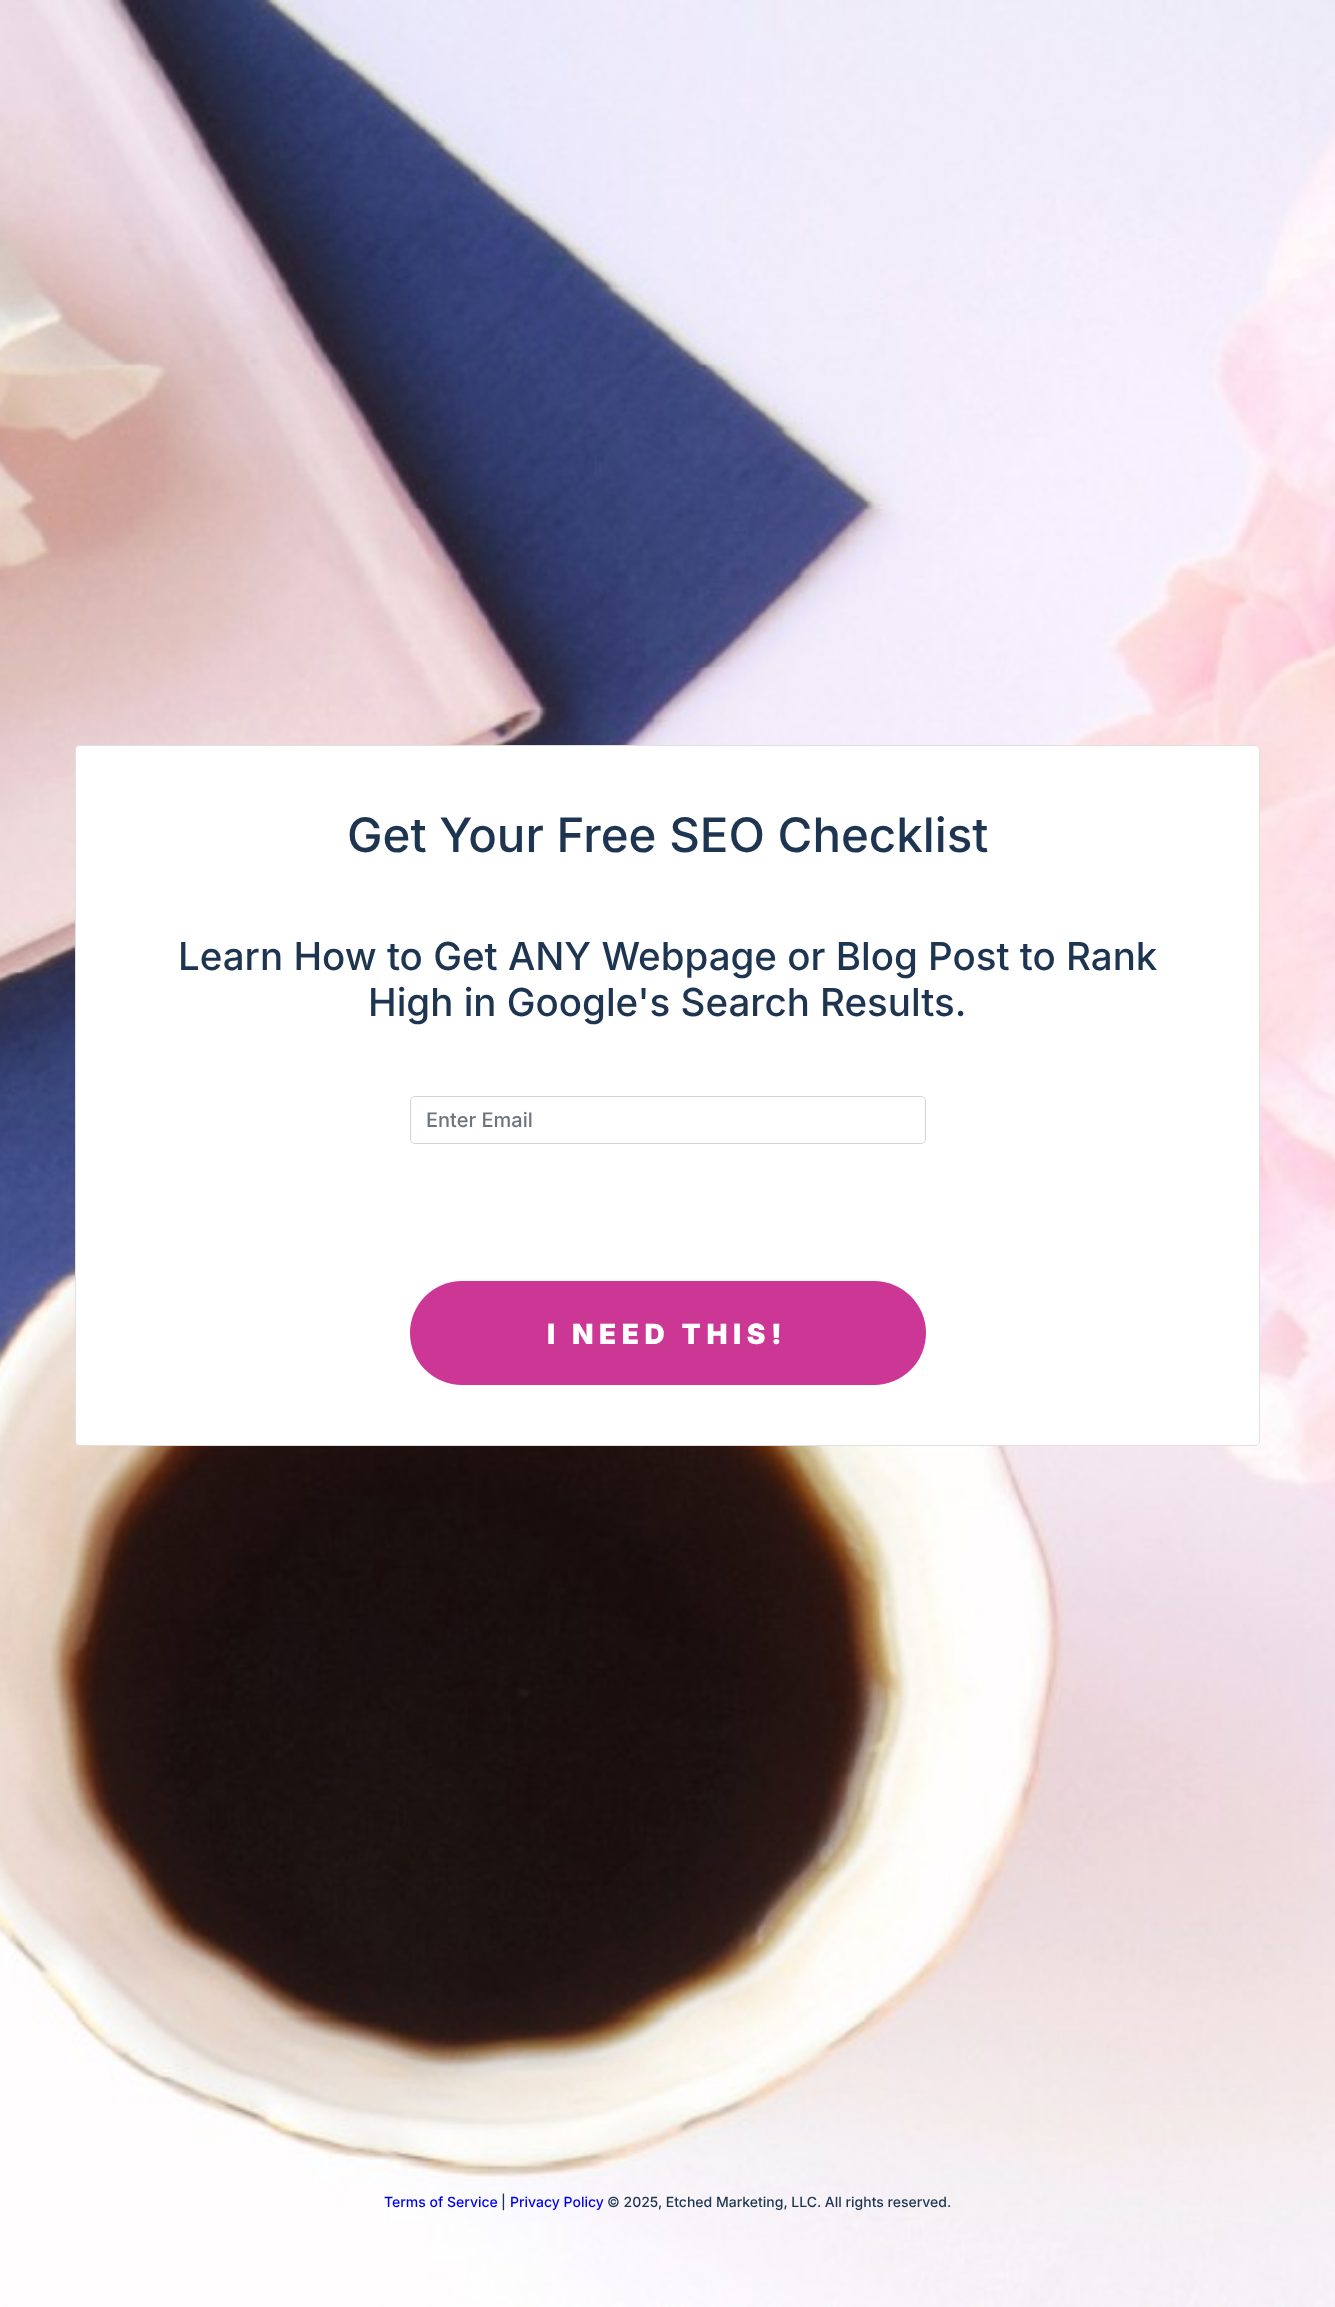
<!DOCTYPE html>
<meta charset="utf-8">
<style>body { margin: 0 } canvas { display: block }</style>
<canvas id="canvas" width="1335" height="2307"></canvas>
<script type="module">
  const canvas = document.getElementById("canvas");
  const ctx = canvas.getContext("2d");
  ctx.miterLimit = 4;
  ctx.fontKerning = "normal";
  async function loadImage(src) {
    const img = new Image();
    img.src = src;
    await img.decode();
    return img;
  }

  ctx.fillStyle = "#ffffff";
  ctx.fillRect(0, 0, 1335, 2307);
  ctx.drawImage(await loadImage("img1.png"), 0, 0, 1335, 2307);
  ctx.beginPath();
  ctx.roundRect(75, 745, 1185, 701, 5);
  ctx.fill();
  ctx.beginPath();
  ctx.roundRect(75.5, 745.5, 1184, 700, 4.5);
  ctx.strokeStyle = "rgba(0, 0, 0, 0.12)";
  ctx.stroke();
  ctx.font = "500 47.5px Inter";
  ctx.fillStyle = "#1e3551";
  ctx.fillText("Get Your Free SEO Checklist", 347, 852);
  ctx.font = "500 38.5px Inter";
  ctx.fillText("Learn How to Get ANY Webpage or Blog Post to Rank", 178, 970);
  ctx.fillText("High in Google's Search Results.", 368, 1016);
  ctx.beginPath();
  ctx.roundRect(410.5, 1096.5, 515, 47, 4.5);
  ctx.strokeStyle = "#ced4da";
  ctx.stroke();
  ctx.font = "500 20px Inter";
  ctx.fillStyle = "#6c757d";
  ctx.fillText("Enter Email", 426, 1127);
  ctx.fillStyle = "#cc3694";
  ctx.beginPath();
  ctx.roundRect(410, 1281, 516, 104, 52);
  ctx.fill();
  ctx.letterSpacing = "5.6px";
  ctx.font = "900 28px Inter";
  ctx.fillStyle = "#ffffff";
  ctx.fillText("I NEED THIS!", 547, 1344);
  ctx.letterSpacing = "0px";
  ctx.font = "500 14px Inter";
  ctx.fillStyle = "#0000ee";
  ctx.fillText("Terms of Service", 384, 2207);
  ctx.fillStyle = "#1e3551";
  ctx.fillText("|", 501, 2207);
  ctx.fillStyle = "#0000ee";
  ctx.fillText("Privacy Policy", 510, 2207);
  ctx.fillStyle = "#1e3551";
  ctx.fillText("© 2025, Etched Marketing, LLC. All rights reserved.", 607, 2207);
</script>
